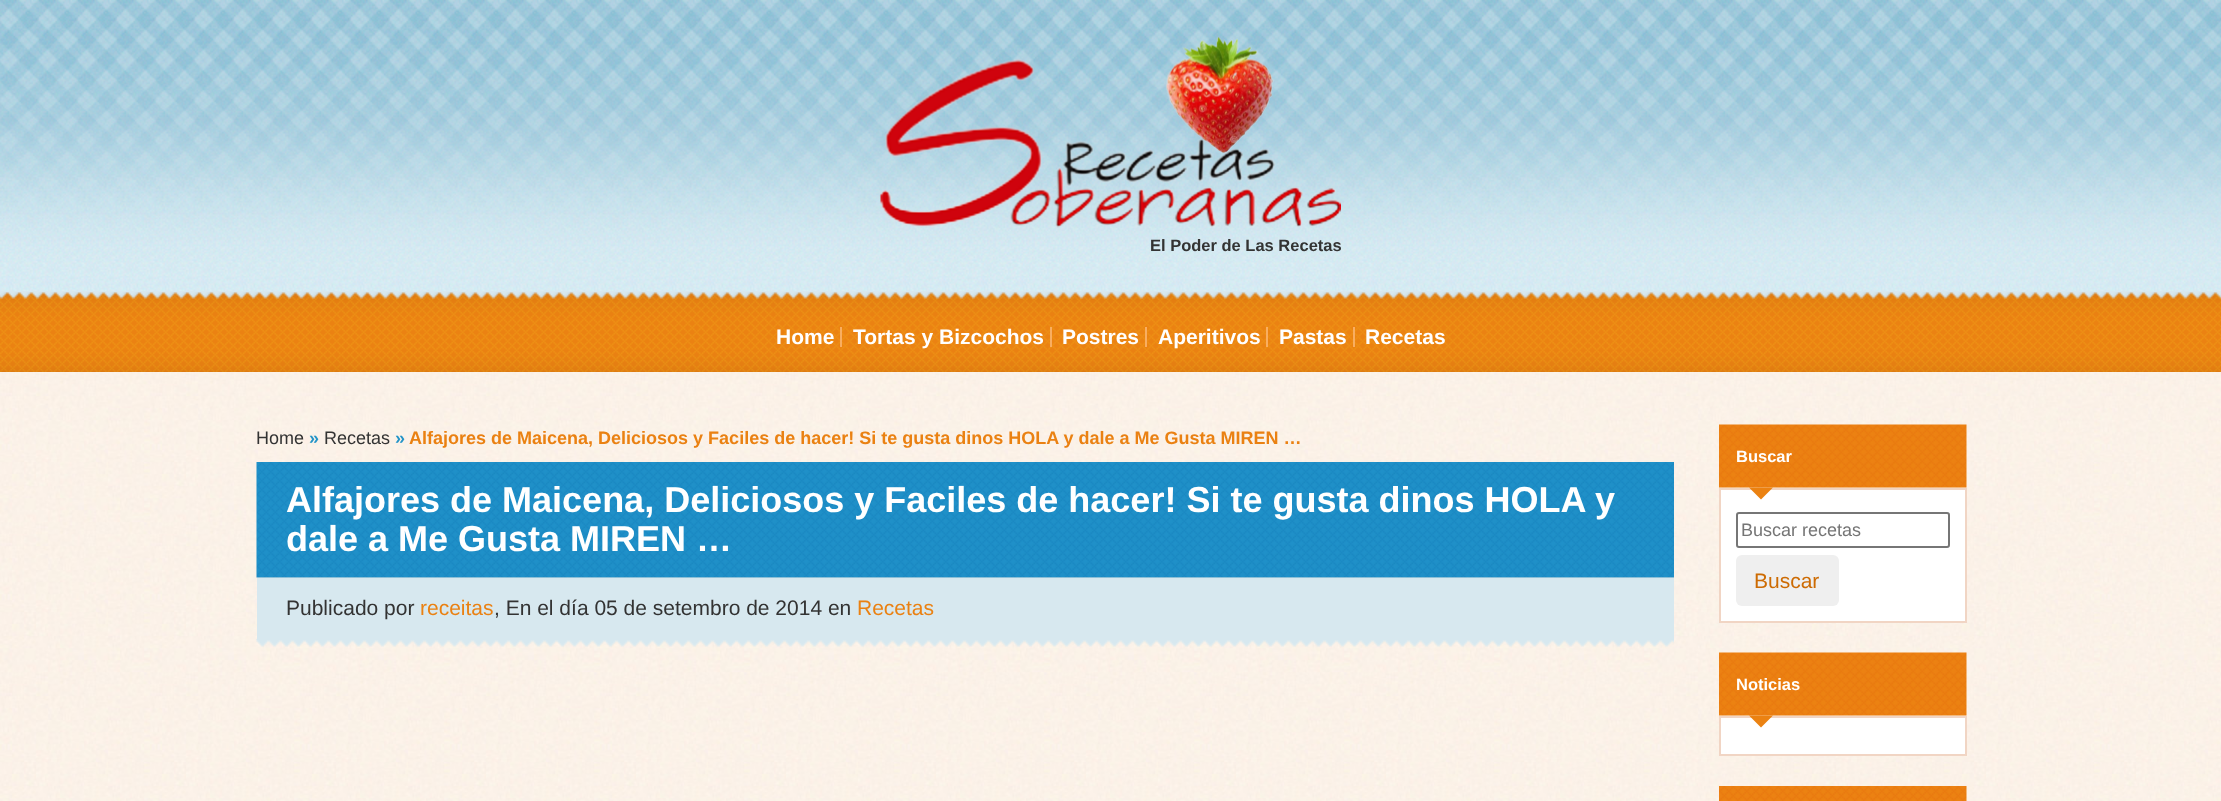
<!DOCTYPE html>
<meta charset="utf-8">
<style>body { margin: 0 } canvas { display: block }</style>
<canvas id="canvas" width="2221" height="801"></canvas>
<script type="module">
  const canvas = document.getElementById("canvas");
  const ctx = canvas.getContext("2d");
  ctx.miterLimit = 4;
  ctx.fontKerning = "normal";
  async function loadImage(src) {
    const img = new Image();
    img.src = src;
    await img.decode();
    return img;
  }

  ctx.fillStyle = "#ffffff";
  ctx.fillRect(0, 0, 2221, 801);
  ctx.drawImage(await loadImage("img1.png"), 0, 372, 2221, 429);
  ctx.drawImage(await loadImage("img2.png"), 0, 0, 2221, 291);
  ctx.drawImage(await loadImage("img3.png"), 880, 37, 461, 191);
  ctx.font = "bold 16.5px Liberation Sans";
  ctx.fillStyle = "#333333";
  ctx.fillText("El Poder de Las Recetas", 1150, 251);
  ctx.fillStyle = "#d7e8ef";
  ctx.fillRect(0, 291, 2221, 8);
  ctx.drawImage(await loadImage("img4.png"), 0, 292, 2221, 80);
  ctx.font = "bold 21px Liberation Sans";
  ctx.fillStyle = "#ffffff";
  ctx.fillText("Home", 776, 344);
  ctx.fillStyle = "#f9ae60";
  ctx.fillRect(840, 327, 2, 20);
  ctx.fillStyle = "#ffffff";
  ctx.fillText("Tortas y Bizcochos", 853, 344);
  ctx.fillStyle = "#f9ae60";
  ctx.fillRect(1050, 327, 2, 20);
  ctx.fillStyle = "#ffffff";
  ctx.fillText("Postres", 1062, 344);
  ctx.fillStyle = "#f9ae60";
  ctx.fillRect(1145, 327, 2, 20);
  ctx.fillStyle = "#ffffff";
  ctx.fillText("Aperitivos", 1158, 344);
  ctx.fillStyle = "#f9ae60";
  ctx.fillRect(1266, 327, 2, 20);
  ctx.fillStyle = "#ffffff";
  ctx.fillText("Pastas", 1279, 344);
  ctx.fillStyle = "#f9ae60";
  ctx.fillRect(1353, 327, 2, 20);
  ctx.fillStyle = "#ffffff";
  ctx.fillText("Recetas", 1365, 344);
  ctx.font = "18px Liberation Sans";
  ctx.fillStyle = "#333333";
  ctx.fillText("Home", 256, 444);
  ctx.font = "bold 18px Liberation Sans";
  ctx.fillStyle = "#2394c8";
  ctx.fillText("»", 309, 444);
  ctx.font = "18px Liberation Sans";
  ctx.fillStyle = "#333333";
  ctx.fillText("Recetas", 324, 444);
  ctx.font = "bold 18px Liberation Sans";
  ctx.fillStyle = "#2394c8";
  ctx.fillText("»", 395, 444);
  ctx.fillStyle = "#ea8112";
  ctx.fillText("Alfajores de Maicena, Deliciosos y Faciles de hacer! Si te gusta dinos HOLA y dale a Me Gusta MIREN …", 409, 444);
  ctx.drawImage(await loadImage("img5.png"), 256, 462, 1418, 116);
  ctx.font = "bold 36px Liberation Sans";
  ctx.fillStyle = "#ffffff";
  ctx.fillText("Alfajores de Maicena, Deliciosos y Faciles de hacer! Si te gusta dinos HOLA y", 286, 512);
  ctx.fillText("dale a Me Gusta MIREN …", 286, 551);
  ctx.fillStyle = "#d7e8ef";
  ctx.fillRect(257, 578, 1417, 61);
  ctx.font = "21px Liberation Sans";
  ctx.fillStyle = "#333333";
  ctx.fillText("Publicado por", 286, 615);
  ctx.fillStyle = "#ea8112";
  ctx.fillText("receitas", 420, 615);
  ctx.fillStyle = "#333333";
  ctx.fillText(", En el día 05 de setembro de 2014 en", 494, 615);
  ctx.fillStyle = "#ea8112";
  ctx.fillText("Recetas", 857, 615);
  ctx.drawImage(await loadImage("img6.png"), 256, 639, 1418, 8);
  ctx.drawImage(await loadImage("img7.png"), 1719, 424, 248, 64);
  ctx.font = "bold 16.5px Liberation Sans";
  ctx.fillStyle = "#ffffff";
  ctx.fillText("Buscar", 1736, 462);
  ctx.beginPath();
  ctx.rect(1720, 489, 246, 133);
  ctx.fill();
  ctx.strokeStyle = "#f1d5c4";
  ctx.lineWidth = 2;
  ctx.stroke();
  ctx.fillStyle = "#eb8212";
  ctx.beginPath();
  ctx.moveTo(1749, 487.5);
  ctx.lineTo(1773, 487.5);
  ctx.lineTo(1761, 499.5);
  ctx.closePath();
  ctx.fill();
  ctx.beginPath();
  ctx.roundRect(1737, 513, 212, 34, 2);
  ctx.strokeStyle = "#767676";
  ctx.stroke();
  ctx.font = "18px Liberation Sans";
  ctx.fillStyle = "#757575";
  ctx.fillText("Buscar recetas", 1741, 536);
  ctx.fillStyle = "#efefef";
  ctx.beginPath();
  ctx.roundRect(1736, 555, 103, 51, 6);
  ctx.fill();
  ctx.font = "21px Liberation Sans";
  ctx.fillStyle = "#cd6b03";
  ctx.fillText("Buscar", 1754, 588);
  ctx.drawImage(await loadImage("img8.png"), 1719, 652, 248, 64);
  ctx.font = "bold 16.5px Liberation Sans";
  ctx.fillStyle = "#ffffff";
  ctx.fillText("Noticias", 1736, 690);
  ctx.beginPath();
  ctx.rect(1720, 717, 246, 38);
  ctx.fill();
  ctx.strokeStyle = "#f1d5c4";
  ctx.stroke();
  ctx.fillStyle = "#eb8212";
  ctx.beginPath();
  ctx.moveTo(1749, 715.5);
  ctx.lineTo(1773, 715.5);
  ctx.lineTo(1761, 727.5);
  ctx.closePath();
  ctx.fill();
  ctx.drawImage(await loadImage("img9.png"), 1719, 786, 248, 15);
</script>
